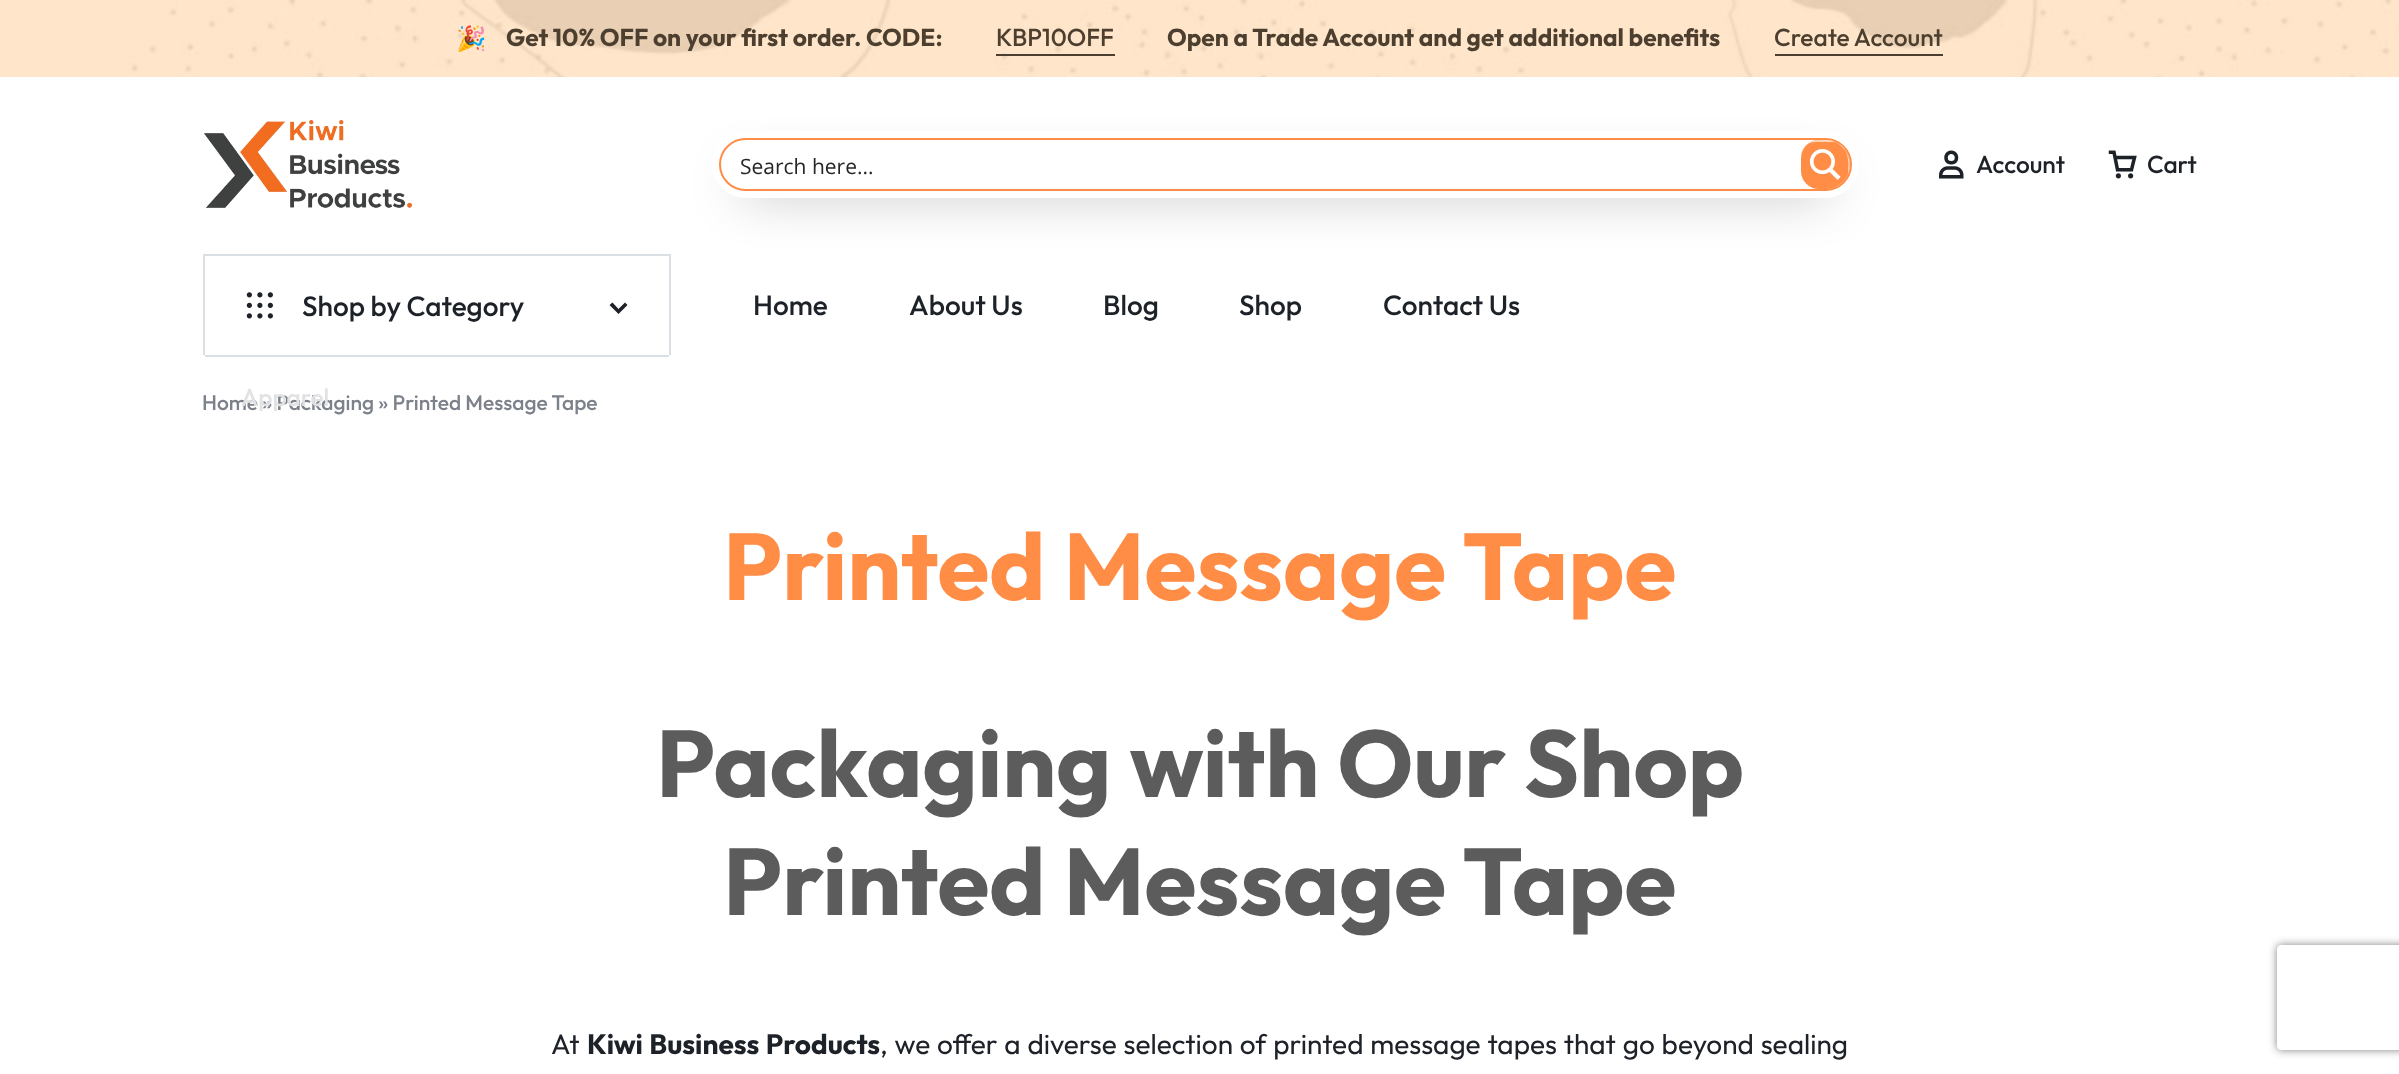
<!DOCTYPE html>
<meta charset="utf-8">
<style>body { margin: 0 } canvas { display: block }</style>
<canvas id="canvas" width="2399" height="1074"></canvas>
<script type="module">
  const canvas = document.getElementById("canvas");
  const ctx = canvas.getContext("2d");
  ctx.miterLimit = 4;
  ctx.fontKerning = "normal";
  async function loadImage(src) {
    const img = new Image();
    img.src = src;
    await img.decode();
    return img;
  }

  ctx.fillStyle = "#ffffff";
  ctx.fillRect(0, 0, 2399, 1074);
  ctx.drawImage(await loadImage("img1.png"), 0, 0, 2399, 77);
  ctx.font = "bold 24.5px Noto Color Emoji";
  ctx.fillStyle = "#4d3f2f";
  ctx.fillText("🎉", 456, 47);
  ctx.font = "bold 24.5px Outfit";
  ctx.fillText("Get 10% OFF on your first order. CODE:", 506, 46);
  ctx.fillRect(996, 54, 119, 2);
  ctx.font = "500 24.5px Outfit";
  ctx.fillText("KBP10OFF", 996, 46);
  ctx.font = "bold 24.5px Outfit";
  ctx.fillText("Open a Trade Account and get additional benefits", 1167, 46);
  ctx.fillRect(1775, 54, 168, 2);
  ctx.font = "500 24.5px Outfit";
  ctx.fillText("Create Account", 1774, 46);
  ctx.drawImage(await loadImage("img2.png"), 203, 119, 210, 89);
  ctx.fillStyle = "#dadfe3";
  ctx.fillRect(203, 254, 467, 2);
  ctx.fillRect(669, 254, 2, 101);
  ctx.fillStyle = "#000000";
  ctx.filter = "blur(26px)";
  ctx.beginPath();
  ctx.roundRect(742, 179, 1087, 7, 3.5);
  ctx.fill();
  ctx.filter = "none";
  ctx.fillStyle = "#ffffff";
  ctx.beginPath();
  ctx.roundRect(712, 131, 1147, 67, 33.5);
  ctx.fill();
  ctx.beginPath();
  ctx.roundRect(720, 139, 1131, 51, 25.5);
  ctx.strokeStyle = "#ff8d46";
  ctx.lineWidth = 2;
  ctx.stroke();
  ctx.font = "21px Open Sans";
  ctx.fillStyle = "#262626";
  ctx.fillText("Search here...", 740, 174);
  ctx.fillStyle = "#ff8d46";
  ctx.beginPath();
  ctx.roundRect(1801, 140, 49, 49, [18, 24.5, 24.5, 18]);
  ctx.fill();
  ctx.fillStyle = "rgba(255, 255, 255, 0.61)";
  ctx.beginPath();
  ctx.moveTo(1816, 142);
  ctx.lineTo(1834, 142);
  ctx.bezierCurveTo(1849, 145, 1849, 162, 1848, 174);
  ctx.bezierCurveTo(1853, 162, 1847, 147, 1835, 142);
  ctx.bezierCurveTo(1831, 140, 1827, 140, 1822, 140);
  ctx.bezierCurveTo(1816, 140, 1811, 141, 1806, 145);
  ctx.bezierCurveTo(1809, 143, 1812, 142, 1816, 142);
  ctx.closePath();
  ctx.fill();
  ctx.drawImage(await loadImage("img3.png"), 1809, 149, 32, 31);
  ctx.drawImage(await loadImage("img4.png"), 1939, 150, 25, 29);
  ctx.font = "500 24.5px Outfit";
  ctx.fillStyle = "#1d2128";
  ctx.fillText("Account", 1976, 173);
  ctx.drawImage(await loadImage("img5.png"), 2108, 150, 29, 29);
  ctx.fillText("Cart", 2147, 173);
  ctx.fillStyle = "#dadfe3";
  ctx.fillRect(203, 254, 2, 101);
  ctx.drawImage(await loadImage("img6.png"), 246, 292, 27, 27);
  ctx.font = "500 28px Outfit";
  ctx.fillStyle = "#1d2128";
  ctx.fillText("Shop by Category", 302, 316);
  ctx.beginPath();
  ctx.moveTo(618.5, 314);
  ctx.lineTo(609.5, 305);
  ctx.lineTo(612.5, 302.5);
  ctx.lineTo(618.5, 309);
  ctx.lineTo(625, 302.5);
  ctx.lineTo(627.5, 305);
  ctx.closePath();
  ctx.fill();
  ctx.fillStyle = "#dadfe3";
  ctx.fillRect(205, 355, 464, 2);
  ctx.font = "500 21px Outfit";
  ctx.fillStyle = "#7c818b";
  ctx.fillText("Home » Packaging » Printed Message Tape", 202, 410);
  ctx.font = "500 24.5px Outfit";
  ctx.fillStyle = "#e1e2e4";
  ctx.fillText("Apparel", 241, 406);
  ctx.font = "500 28px Outfit";
  ctx.fillStyle = "#1d2128";
  ctx.fillText("Home", 753, 315);
  ctx.fillText("About Us", 909, 315);
  ctx.fillText("Blog", 1103, 315);
  ctx.fillText("Shop", 1239, 315);
  ctx.fillText("Contact Us", 1383, 315);
  ctx.font = "bold 94.5px Outfit";
  ctx.fillStyle = "#ff8d46";
  ctx.fillText("Printed Message Tape", 723, 600);
  ctx.fillStyle = "#5c5c5c";
  ctx.fillText("Packaging with Our Shop", 656, 797);
  ctx.fillText("Printed Message Tape", 723, 915);
  ctx.font = "28px Outfit";
  ctx.fillStyle = "#1d2128";
  ctx.fillText("At", 551, 1054);
  ctx.wordSpacing = "1px";
  ctx.font = "bold 28px Outfit";
  ctx.fillText("Kiwi Business Products", 587, 1054);
  ctx.font = "28px Outfit";
  ctx.fillText(", we offer a diverse selection of printed message tapes that go beyond sealing", 880, 1054);
  ctx.save();
  ctx.beginPath();
  ctx.moveTo(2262, 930);
  ctx.lineTo(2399, 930);
  ctx.lineTo(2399, 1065);
  ctx.lineTo(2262, 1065);
  ctx.closePath();
  ctx.moveTo(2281, 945);
  ctx.lineTo(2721, 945);
  ctx.bezierCurveTo(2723, 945, 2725, 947, 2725, 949);
  ctx.lineTo(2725, 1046);
  ctx.bezierCurveTo(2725, 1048, 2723, 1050, 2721, 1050);
  ctx.lineTo(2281, 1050);
  ctx.bezierCurveTo(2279, 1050, 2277, 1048, 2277, 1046);
  ctx.lineTo(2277, 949);
  ctx.bezierCurveTo(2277, 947, 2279, 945, 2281, 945);
  ctx.closePath();
  ctx.clip("evenodd");
  ctx.fillStyle = "#808080";
  ctx.filter = "blur(4.5px)";
  ctx.beginPath();
  ctx.roundRect(2277, 945, 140, 105, 4);
  ctx.fill();
  ctx.filter = "none";
  ctx.restore();
</script>
